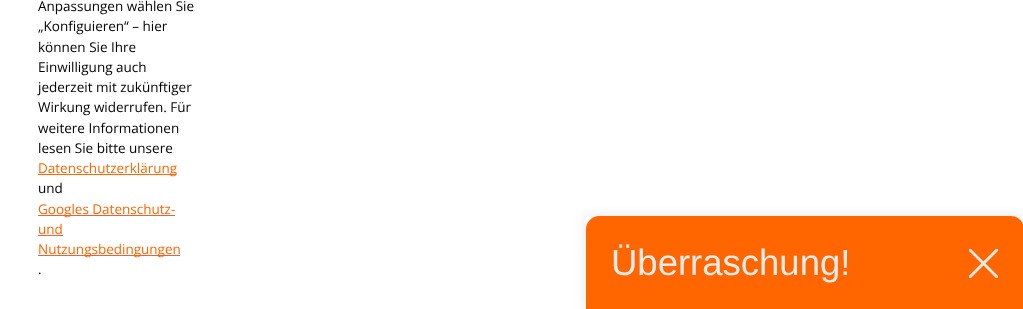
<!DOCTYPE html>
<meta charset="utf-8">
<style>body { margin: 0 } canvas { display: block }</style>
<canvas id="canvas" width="1023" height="309"></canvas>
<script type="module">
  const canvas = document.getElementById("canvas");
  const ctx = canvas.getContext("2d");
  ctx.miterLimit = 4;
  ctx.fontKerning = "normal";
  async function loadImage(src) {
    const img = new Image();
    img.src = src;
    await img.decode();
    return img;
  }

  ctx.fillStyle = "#ffffff";
  ctx.fillRect(0, 0, 1023, 309);
  ctx.font = "13.5px Open Sans";
  ctx.fillStyle = "#000000";
  ctx.fillText("Anpassungen wählen Sie", 38, 11);
  ctx.fillText("„Konfiguieren“ – hier", 38, 31);
  ctx.fillText("können Sie Ihre", 38, 52);
  ctx.fillText("Einwilligung auch", 38, 72);
  ctx.fillText("jederzeit mit zukünftiger", 38, 92);
  ctx.fillText("Wirkung widerrufen. Für", 38, 112);
  ctx.fillText("weitere Informationen", 38, 133);
  ctx.fillText("lesen Sie bitte unsere", 38, 153);
  ctx.fillStyle = "#ff6600";
  ctx.fillRect(38, 174, 138, 1);
  ctx.fillText("Datenschutzerklärung", 38, 173);
  ctx.fillStyle = "#000000";
  ctx.fillText("und", 38, 193);
  ctx.fillStyle = "#fa5d27";
  ctx.fillRect(38, 215, 137, 1);
  ctx.fillStyle = "#ff6600";
  ctx.fillText("Googles Datenschutz-", 38, 214);
  ctx.fillText("und", 38, 234);
  ctx.fillStyle = "#fa5d27";
  ctx.fillRect(38, 235, 25, 1);
  ctx.fillRect(38, 255, 142, 1);
  ctx.fillStyle = "#ff6600";
  ctx.fillText("Nutzungsbedingungen", 38, 254);
  ctx.fillStyle = "#000000";
  ctx.fillText(".", 38, 274);
  ctx.save();
  ctx.beginPath();
  ctx.moveTo(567, 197);
  ctx.lineTo(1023, 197);
  ctx.lineTo(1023, 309);
  ctx.lineTo(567, 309);
  ctx.closePath();
  ctx.moveTo(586, 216);
  ctx.lineTo(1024, 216);
  ctx.lineTo(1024, 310);
  ctx.lineTo(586, 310);
  ctx.closePath();
  ctx.clip("evenodd");
  ctx.fillStyle = "rgba(0, 0, 0, 0.1)";
  ctx.filter = "blur(6px)";
  ctx.beginPath();
  ctx.rect(586, 216, 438, 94);
  ctx.fill();
  ctx.filter = "none";
  ctx.restore();
  ctx.fillStyle = "#ff6600";
  ctx.beginPath();
  ctx.moveTo(599, 216);
  ctx.lineTo(1011, 216);
  ctx.bezierCurveTo(1018, 216, 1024, 222, 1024, 229);
  ctx.lineTo(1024, 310);
  ctx.lineTo(586, 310);
  ctx.lineTo(586, 229);
  ctx.bezierCurveTo(586, 222, 592, 216, 599, 216);
  ctx.closePath();
  ctx.fill();
  ctx.font = "36.5px Liberation Sans";
  ctx.fillStyle = "#ebebeb";
  ctx.fillText("Überraschung!", 611, 275);
  ctx.drawImage(await loadImage("img1.png"), 969, 249, 30, 29);
</script>
